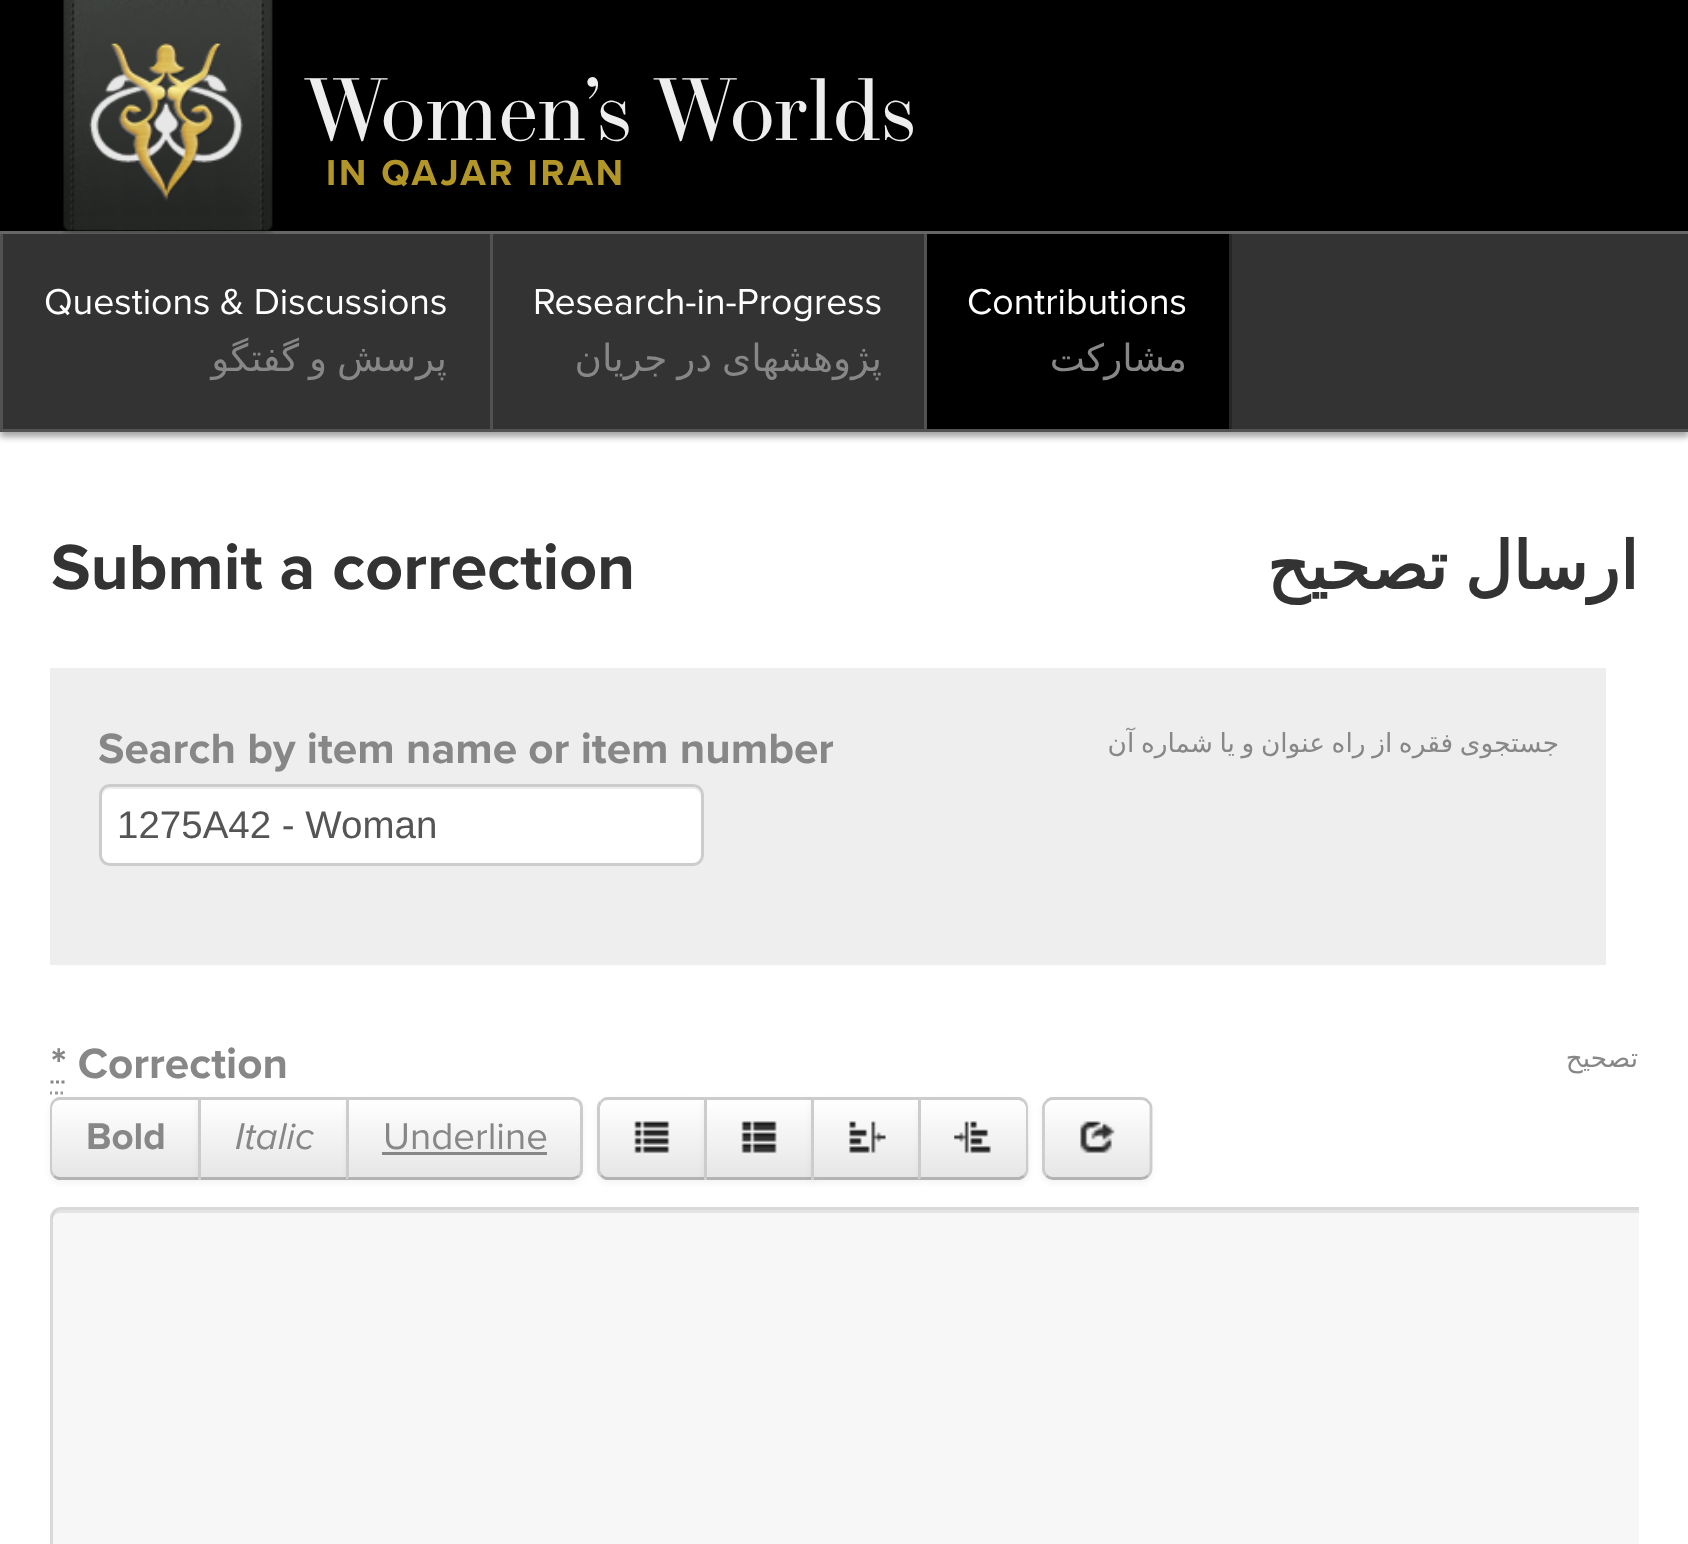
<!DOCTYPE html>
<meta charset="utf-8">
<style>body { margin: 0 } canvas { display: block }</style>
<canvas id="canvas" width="1688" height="1544"></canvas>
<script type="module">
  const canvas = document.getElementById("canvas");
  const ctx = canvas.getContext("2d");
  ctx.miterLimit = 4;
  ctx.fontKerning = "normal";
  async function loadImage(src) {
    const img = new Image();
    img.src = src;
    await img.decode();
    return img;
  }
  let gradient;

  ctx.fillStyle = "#ffffff";
  ctx.fillRect(0, 0, 1688, 1544);
  ctx.fillStyle = "rgba(0, 0, 0, 0.35)";
  ctx.filter = "blur(3px)";
  ctx.beginPath();
  ctx.rect(0, 237, 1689, 200);
  ctx.fill();
  ctx.filter = "none";
  ctx.fillStyle = "#000000";
  ctx.fillRect(0, 0, 1688, 231);
  ctx.fillStyle = "#666666";
  ctx.fillRect(0, 231, 1688, 3);
  ctx.drawImage(await loadImage("img1.png"), 61, 0, 213, 234);
  ctx.font = "88px 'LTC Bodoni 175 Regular'";
  ctx.fillStyle = "#eeeeee";
  ctx.fillText("Women’s Worlds", 304, 140);
  ctx.letterSpacing = "2.75px";
  ctx.font = "bold 37.4px Proxima Nova";
  ctx.fillStyle = "#b29628";
  ctx.fillText("IN QAJAR IRAN", 326, 185);
  ctx.fillStyle = "#333333";
  ctx.fillRect(3, 234, 1685, 195);
  ctx.fillStyle = "#525252";
  ctx.fillRect(0, 429, 1688, 3);
  ctx.fillRect(490, 234, 3, 195);
  ctx.fillRect(0, 234, 3, 195);
  ctx.letterSpacing = "0px";
  ctx.font = "37.4px Proxima Nova";
  ctx.fillStyle = "#ffffff";
  ctx.fillText("Questions & Discussions", 44, 314);
  ctx.wordSpacing = "-2px";
  ctx.direction = "rtl";
  ctx.font = "37.4px DejaVu Sans";
  ctx.fillStyle = "#878787";
  ctx.fillText("پرسش و گفتگو", 447, 371);
  ctx.fillStyle = "#525252";
  ctx.fillRect(924, 234, 3, 195);
  ctx.wordSpacing = "0px";
  ctx.direction = "ltr";
  ctx.font = "37.4px Proxima Nova";
  ctx.fillStyle = "#ffffff";
  ctx.fillText("Research-in-Progress", 533, 314);
  ctx.wordSpacing = "-2px";
  ctx.direction = "rtl";
  ctx.font = "37.4px DejaVu Sans";
  ctx.fillStyle = "#878787";
  ctx.fillText("پژوهشهای در جریان", 882, 371);
  ctx.fillStyle = "#000000";
  ctx.fillRect(927, 234, 302, 195);
  ctx.fillStyle = "#262626";
  ctx.fillRect(1229, 234, 3, 195);
  ctx.wordSpacing = "0px";
  ctx.direction = "ltr";
  ctx.font = "37.4px Proxima Nova";
  ctx.fillStyle = "#ffffff";
  ctx.fillText("Contributions", 967, 314);
  ctx.direction = "rtl";
  ctx.font = "37.4px DejaVu Sans";
  ctx.fillStyle = "#878787";
  ctx.fillText("مشارکت", 1187, 371);
  ctx.direction = "ltr";
  ctx.font = "bold 66px Proxima Nova";
  ctx.fillStyle = "#333333";
  ctx.fillText("Submit a correction", 51, 589);
  ctx.wordSpacing = "-4px";
  ctx.direction = "rtl";
  ctx.font = "bold 66px DejaVu Sans";
  ctx.fillText("ارسال تصحیح", 1638, 589);
  ctx.fillStyle = "#eeeeee";
  ctx.fillRect(50, 668, 1556, 297);
  ctx.save();
  ctx.beginPath();
  ctx.rect(99, 718, 734, 148);
  ctx.clip();
  ctx.wordSpacing = "0px";
  ctx.direction = "ltr";
  ctx.font = "bold 44px Proxima Nova";
  ctx.fillStyle = "#878787";
  ctx.fillText("Search by item name or item number", 98, 763);
  ctx.restore();
  ctx.fillStyle = "#ffffff";
  ctx.beginPath();
  ctx.roundRect(99, 784, 605, 82, 11);
  ctx.fill();
  ctx.fillStyle = "#ececec";
  ctx.beginPath();
  ctx.moveTo(110, 789);
  ctx.lineTo(693, 789);
  ctx.bezierCurveTo(698, 789, 701, 793, 701, 798);
  ctx.lineTo(701, 795);
  ctx.bezierCurveTo(701, 791, 697, 787, 693, 787);
  ctx.lineTo(110, 787);
  ctx.bezierCurveTo(106, 787, 102, 791, 102, 795);
  ctx.lineTo(102, 798);
  ctx.bezierCurveTo(102, 793, 105, 789, 110, 789);
  ctx.closePath();
  ctx.fill();
  ctx.beginPath();
  ctx.roundRect(100.5, 785.5, 602, 79, 9.5);
  ctx.strokeStyle = "#cccccc";
  ctx.lineWidth = 3;
  ctx.stroke();
  ctx.wordSpacing = "0px";
  ctx.direction = "ltr";
  ctx.font = "38.5px Liberation Sans";
  ctx.fillStyle = "#555555";
  ctx.fillText("1275A42 - Woman", 117, 838);
  ctx.save();
  ctx.beginPath();
  ctx.rect(99, 718, 1460, 148);
  ctx.clip();
  ctx.wordSpacing = "-1.75px";
  ctx.direction = "rtl";
  ctx.font = "26.4px DejaVu Sans";
  ctx.fillStyle = "#878787";
  ctx.fillText("جستجوی فقره از راه عنوان و یا شماره آن", 1559, 752);
  ctx.restore();
  ctx.font = "bold 44px Proxima Nova";
  ctx.fillStyle = "#878787";
  ctx.fillText("* Correction", 51, 1078);
  ctx.save();
  ctx.beginPath();
  ctx.rect(50, 668, 1589, 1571);
  ctx.clip();
  ctx.beginPath();
  ctx.moveTo(49.5, 1093);
  ctx.lineTo(52, 1093);
  ctx.moveTo(55, 1093);
  ctx.lineTo(58, 1093);
  ctx.moveTo(60.5, 1093);
  ctx.lineTo(63, 1093);
  ctx.strokeStyle = "#999999";
  ctx.lineWidth = 2.8;
  ctx.stroke();
  ctx.restore();
  ctx.beginPath();
  ctx.moveTo(50.5, 1082);
  ctx.lineTo(53.5, 1082);
  ctx.moveTo(56, 1082);
  ctx.lineTo(59, 1082);
  ctx.moveTo(61.5, 1082);
  ctx.lineTo(64.5, 1082);
  ctx.strokeStyle = "#878787";
  ctx.lineWidth = 2.8;
  ctx.stroke();
  ctx.save();
  ctx.beginPath();
  ctx.moveTo(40, 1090);
  ctx.lineTo(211, 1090);
  ctx.lineTo(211, 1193);
  ctx.lineTo(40, 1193);
  ctx.closePath();
  ctx.moveTo(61, 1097);
  ctx.lineTo(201, 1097);
  ctx.lineTo(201, 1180);
  ctx.lineTo(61, 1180);
  ctx.bezierCurveTo(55, 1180, 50, 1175, 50, 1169);
  ctx.lineTo(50, 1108);
  ctx.bezierCurveTo(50, 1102, 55, 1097, 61, 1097);
  ctx.closePath();
  ctx.clip("evenodd");
  ctx.fillStyle = "rgba(0, 0, 0, 0.05)";
  ctx.filter = "blur(3px)";
  ctx.beginPath();
  ctx.roundRect(50, 1100, 151, 83, 11);
  ctx.fill();
  ctx.filter = "none";
  ctx.restore();
  ctx.save();
  ctx.beginPath();
  ctx.roundRect(50, 1097, 151, 83, [11, 0, 0, 11]);
  ctx.clip();
  gradient = ctx.createLinearGradient(125, 1100, 125, 1177);
  gradient.addColorStop(0, "#ffffff");
  gradient.addColorStop(1, "#e6e6e6");
  ctx.fillStyle = gradient;
  ctx.fillRect(50, 1100, 148, 77);
  ctx.restore();
  ctx.fillStyle = "#cccccc";
  ctx.beginPath();
  ctx.moveTo(60, 1100);
  ctx.bezierCurveTo(58, 1100, 56, 1101, 55, 1102);
  ctx.lineTo(53, 1100);
  ctx.bezierCurveTo(54, 1099, 56, 1098, 58, 1097);
  ctx.lineTo(201, 1097);
  ctx.lineTo(198, 1100);
  ctx.closePath();
  ctx.fill();
  ctx.fillStyle = "#b3b3b3";
  ctx.beginPath();
  ctx.moveTo(201, 1180);
  ctx.lineTo(58, 1180);
  ctx.bezierCurveTo(56, 1179, 54, 1178, 53, 1177);
  ctx.lineTo(55, 1175);
  ctx.bezierCurveTo(56, 1176, 58, 1177, 60, 1177);
  ctx.lineTo(198, 1177);
  ctx.closePath();
  ctx.fill();
  ctx.fillStyle = "#cccccc";
  ctx.beginPath();
  ctx.moveTo(53, 1177);
  ctx.bezierCurveTo(51, 1175, 50, 1172, 50, 1169);
  ctx.lineTo(50, 1108);
  ctx.bezierCurveTo(50, 1105, 51, 1102, 53, 1100);
  ctx.lineTo(55, 1102);
  ctx.bezierCurveTo(53, 1104, 52, 1106, 52, 1108);
  ctx.lineTo(52, 1169);
  ctx.bezierCurveTo(52, 1171, 53, 1173, 55, 1175);
  ctx.closePath();
  ctx.fill();
  ctx.font = "bold 38.5px Proxima Nova";
  ctx.fillStyle = "#878787";
  ctx.fillText("Bold", 86, 1149);
  ctx.fillStyle = "rgba(0, 0, 0, 0.05)";
  ctx.filter = "blur(3px)";
  ctx.beginPath();
  ctx.rect(198, 1100, 151, 83);
  ctx.fill();
  ctx.filter = "none";
  gradient = ctx.createLinearGradient(274, 1100, 274, 1177);
  gradient.addColorStop(0, "#ffffff");
  gradient.addColorStop(1, "#e6e6e6");
  ctx.fillStyle = gradient;
  ctx.fillRect(201, 1100, 145, 77);
  ctx.fillStyle = "#cccccc";
  ctx.fillRect(198, 1097, 151, 3);
  ctx.fillStyle = "#b3b3b3";
  ctx.fillRect(198, 1177, 151, 3);
  ctx.fillStyle = "#cccccc";
  ctx.fillRect(198, 1097, 3, 83);
  ctx.font = "italic 38.5px Proxima Nova";
  ctx.fillStyle = "#878787";
  ctx.fillText("Italic", 235, 1149);
  ctx.fillStyle = "rgba(0, 0, 0, 0.05)";
  ctx.filter = "blur(3px)";
  ctx.beginPath();
  ctx.roundRect(347, 1100, 236, 83, 11);
  ctx.fill();
  ctx.filter = "none";
  ctx.fillStyle = "#f5f5f5";
  ctx.beginPath();
  ctx.roundRect(347, 1097, 236, 83, [0, 11, 11, 0]);
  ctx.fill();
  ctx.save();
  ctx.beginPath();
  ctx.roundRect(347, 1097, 236, 83, [0, 11, 11, 0]);
  ctx.clip();
  gradient = ctx.createLinearGradient(465, 1100, 465, 1177);
  gradient.addColorStop(0, "#ffffff");
  gradient.addColorStop(1, "#e6e6e6");
  ctx.fillStyle = gradient;
  ctx.fillRect(349, 1100, 234, 77);
  ctx.restore();
  ctx.fillStyle = "#cccccc";
  ctx.beginPath();
  ctx.moveTo(346, 1097);
  ctx.lineTo(574, 1097);
  ctx.bezierCurveTo(576, 1098, 578, 1099, 580, 1100);
  ctx.lineTo(578, 1102);
  ctx.bezierCurveTo(576, 1101, 574, 1100, 572, 1100);
  ctx.lineTo(349, 1100);
  ctx.closePath();
  ctx.fill();
  ctx.beginPath();
  ctx.moveTo(583, 1169);
  ctx.lineTo(583, 1108);
  ctx.bezierCurveTo(583, 1105, 582, 1102, 580, 1100);
  ctx.lineTo(578, 1102);
  ctx.bezierCurveTo(579, 1104, 580, 1106, 580, 1108);
  ctx.lineTo(580, 1169);
  ctx.bezierCurveTo(580, 1171, 579, 1173, 578, 1175);
  ctx.lineTo(580, 1177);
  ctx.bezierCurveTo(582, 1175, 583, 1172, 583, 1169);
  ctx.closePath();
  ctx.fill();
  ctx.fillStyle = "#b3b3b3";
  ctx.beginPath();
  ctx.moveTo(580, 1177);
  ctx.bezierCurveTo(578, 1178, 576, 1179, 574, 1180);
  ctx.lineTo(346, 1180);
  ctx.lineTo(349, 1177);
  ctx.lineTo(572, 1177);
  ctx.bezierCurveTo(574, 1177, 576, 1176, 578, 1175);
  ctx.closePath();
  ctx.fill();
  ctx.fillStyle = "#cccccc";
  ctx.beginPath();
  ctx.moveTo(349, 1100);
  ctx.lineTo(346, 1097);
  ctx.lineTo(346, 1180);
  ctx.lineTo(349, 1177);
  ctx.closePath();
  ctx.fill();
  ctx.font = "38.5px Proxima Nova";
  ctx.fillStyle = "#878787";
  ctx.fillText("Underline", 383, 1149);
  ctx.fillRect(382, 1152, 165, 3);
  ctx.fillStyle = "rgba(0, 0, 0, 0.05)";
  ctx.filter = "blur(3px)";
  ctx.beginPath();
  ctx.roundRect(597, 1100, 110, 83, 11);
  ctx.fill();
  ctx.filter = "none";
  ctx.fillStyle = "#f5f5f5";
  ctx.beginPath();
  ctx.roundRect(597, 1097, 110, 83, [11, 0, 0, 11]);
  ctx.fill();
  ctx.save();
  ctx.beginPath();
  ctx.roundRect(597, 1097, 110, 83, [11, 0, 0, 11]);
  ctx.clip();
  gradient = ctx.createLinearGradient(652, 1100, 652, 1177);
  gradient.addColorStop(0, "#ffffff");
  gradient.addColorStop(1, "#e6e6e6");
  ctx.fillStyle = gradient;
  ctx.fillRect(597, 1100, 107, 77);
  ctx.restore();
  ctx.fillStyle = "#cccccc";
  ctx.beginPath();
  ctx.moveTo(608, 1100);
  ctx.bezierCurveTo(605, 1100, 603, 1101, 602, 1103);
  ctx.lineTo(600, 1101);
  ctx.bezierCurveTo(602, 1099, 603, 1098, 606, 1097);
  ctx.lineTo(707, 1097);
  ctx.lineTo(704, 1100);
  ctx.closePath();
  ctx.fill();
  ctx.fillStyle = "#b3b3b3";
  ctx.beginPath();
  ctx.moveTo(707, 1180);
  ctx.lineTo(606, 1180);
  ctx.bezierCurveTo(603, 1179, 602, 1178, 600, 1176);
  ctx.lineTo(602, 1174);
  ctx.bezierCurveTo(603, 1176, 605, 1177, 608, 1177);
  ctx.lineTo(704, 1177);
  ctx.closePath();
  ctx.fill();
  ctx.fillStyle = "#cccccc";
  ctx.beginPath();
  ctx.moveTo(600, 1176);
  ctx.bezierCurveTo(598, 1175, 597, 1172, 597, 1169);
  ctx.lineTo(597, 1108);
  ctx.bezierCurveTo(597, 1105, 598, 1102, 600, 1101);
  ctx.lineTo(602, 1103);
  ctx.bezierCurveTo(601, 1104, 600, 1106, 600, 1108);
  ctx.lineTo(600, 1169);
  ctx.bezierCurveTo(600, 1171, 601, 1173, 602, 1174);
  ctx.closePath();
  ctx.fill();
  ctx.drawImage(await loadImage("img2.png"), 634, 1121, 36, 34);
  ctx.fillStyle = "rgba(0, 0, 0, 0.05)";
  ctx.filter = "blur(3px)";
  ctx.beginPath();
  ctx.rect(704, 1100, 110, 83);
  ctx.fill();
  ctx.filter = "none";
  gradient = ctx.createLinearGradient(759, 1100, 759, 1177);
  gradient.addColorStop(0, "#ffffff");
  gradient.addColorStop(1, "#e6e6e6");
  ctx.fillStyle = gradient;
  ctx.fillRect(707, 1100, 104, 77);
  ctx.fillStyle = "#cccccc";
  ctx.fillRect(704, 1097, 110, 3);
  ctx.fillStyle = "#b3b3b3";
  ctx.fillRect(704, 1177, 110, 3);
  ctx.fillStyle = "#cccccc";
  ctx.fillRect(704, 1097, 3, 83);
  ctx.drawImage(await loadImage("img3.png"), 741, 1121, 36, 34);
  ctx.fillStyle = "rgba(0, 0, 0, 0.05)";
  ctx.filter = "blur(3px)";
  ctx.beginPath();
  ctx.rect(811, 1100, 110, 83);
  ctx.fill();
  ctx.filter = "none";
  gradient = ctx.createLinearGradient(866, 1100, 866, 1177);
  gradient.addColorStop(0, "#ffffff");
  gradient.addColorStop(1, "#e6e6e6");
  ctx.fillStyle = gradient;
  ctx.fillRect(814, 1100, 104, 77);
  ctx.fillStyle = "#cccccc";
  ctx.fillRect(811, 1097, 110, 3);
  ctx.fillStyle = "#b3b3b3";
  ctx.fillRect(811, 1177, 110, 3);
  ctx.fillStyle = "#cccccc";
  ctx.fillRect(811, 1097, 3, 83);
  ctx.drawImage(await loadImage("img4.png"), 849, 1121, 37, 34);
  ctx.fillStyle = "rgba(0, 0, 0, 0.05)";
  ctx.filter = "blur(3px)";
  ctx.beginPath();
  ctx.roundRect(919, 1100, 110, 83, 11);
  ctx.fill();
  ctx.filter = "none";
  ctx.fillStyle = "#f5f5f5";
  ctx.beginPath();
  ctx.roundRect(919, 1097, 110, 83, [0, 11, 11, 0]);
  ctx.fill();
  ctx.save();
  ctx.beginPath();
  ctx.roundRect(919, 1097, 110, 83, [0, 11, 11, 0]);
  ctx.clip();
  gradient = ctx.createLinearGradient(974, 1100, 974, 1177);
  gradient.addColorStop(0, "#ffffff");
  gradient.addColorStop(1, "#e6e6e6");
  ctx.fillStyle = gradient;
  ctx.fillRect(921, 1100, 108, 77);
  ctx.restore();
  ctx.fillStyle = "#cccccc";
  ctx.beginPath();
  ctx.moveTo(918, 1097);
  ctx.lineTo(1020, 1097);
  ctx.bezierCurveTo(1022, 1098, 1024, 1099, 1025, 1100);
  ctx.lineTo(1023, 1102);
  ctx.lineTo(1019, 1100);
  ctx.lineTo(921, 1100);
  ctx.closePath();
  ctx.fill();
  ctx.beginPath();
  ctx.moveTo(1025, 1100);
  ctx.bezierCurveTo(1027, 1102, 1028, 1105, 1028, 1108);
  ctx.lineTo(1028, 1169);
  ctx.bezierCurveTo(1028, 1172, 1027, 1175, 1025, 1177);
  ctx.lineTo(1023, 1175);
  ctx.bezierCurveTo(1025, 1173, 1026, 1171, 1026, 1169);
  ctx.lineTo(1026, 1108);
  ctx.bezierCurveTo(1026, 1106, 1025, 1104, 1023, 1102);
  ctx.closePath();
  ctx.fill();
  ctx.fillStyle = "#b3b3b3";
  ctx.beginPath();
  ctx.moveTo(1025, 1177);
  ctx.bezierCurveTo(1024, 1178, 1022, 1179, 1020, 1180);
  ctx.lineTo(918, 1180);
  ctx.lineTo(921, 1177);
  ctx.lineTo(1019, 1177);
  ctx.lineTo(1023, 1175);
  ctx.closePath();
  ctx.fill();
  ctx.fillStyle = "#cccccc";
  ctx.beginPath();
  ctx.moveTo(921, 1100);
  ctx.lineTo(918, 1097);
  ctx.lineTo(918, 1180);
  ctx.lineTo(921, 1177);
  ctx.closePath();
  ctx.fill();
  ctx.drawImage(await loadImage("img5.png"), 954, 1121, 37, 34);
  ctx.fillStyle = "rgba(0, 0, 0, 0.05)";
  ctx.filter = "blur(3px)";
  ctx.beginPath();
  ctx.roundRect(1042, 1100, 110, 83, 11);
  ctx.fill();
  ctx.filter = "none";
  ctx.fillStyle = "#f5f5f5";
  ctx.beginPath();
  ctx.roundRect(1042, 1097, 110, 83, 11);
  ctx.fill();
  ctx.save();
  ctx.beginPath();
  ctx.roundRect(1042, 1097, 110, 83, 11);
  ctx.clip();
  gradient = ctx.createLinearGradient(1097, 1100, 1097, 1177);
  gradient.addColorStop(0, "#ffffff");
  gradient.addColorStop(1, "#e6e6e6");
  ctx.fillStyle = gradient;
  ctx.fillRect(1042, 1100, 110, 77);
  ctx.restore();
  ctx.fillStyle = "#ffffff";
  ctx.beginPath();
  ctx.moveTo(1053, 1103);
  ctx.lineTo(1141, 1103);
  ctx.bezierCurveTo(1146, 1103, 1150, 1106, 1150, 1111);
  ctx.bezierCurveTo(1150, 1097, 1139, 1100, 1127, 1100);
  ctx.lineTo(1068, 1100);
  ctx.bezierCurveTo(1056, 1100, 1045, 1097, 1045, 1111);
  ctx.bezierCurveTo(1045, 1106, 1049, 1103, 1053, 1103);
  ctx.closePath();
  ctx.fill();
  ctx.beginPath();
  ctx.moveTo(1148, 1175.5);
  ctx.bezierCurveTo(1146.5, 1177.5, 1144, 1178.5, 1141, 1178.5);
  ctx.lineTo(1053, 1178.5);
  ctx.bezierCurveTo(1050.5, 1178.5, 1048, 1177.5, 1046.5, 1175.5);
  ctx.strokeStyle = "#b3b3b3";
  ctx.stroke();
  ctx.beginPath();
  ctx.moveTo(1046.5, 1175.5);
  ctx.bezierCurveTo(1044.5, 1174, 1043.5, 1171.5, 1043.5, 1169);
  ctx.lineTo(1043.5, 1108);
  ctx.bezierCurveTo(1043.5, 1105.5, 1044.5, 1103, 1046.5, 1101.5);
  ctx.bezierCurveTo(1048, 1099.5, 1050.5, 1098.5, 1053, 1098.5);
  ctx.lineTo(1141, 1098.5);
  ctx.bezierCurveTo(1144, 1098.5, 1146.5, 1099.5, 1148, 1101.5);
  ctx.bezierCurveTo(1150, 1103, 1151, 1105.5, 1151, 1108);
  ctx.lineTo(1151, 1169);
  ctx.bezierCurveTo(1151, 1171.5, 1150, 1174, 1148, 1175.5);
  ctx.strokeStyle = "#cccccc";
  ctx.stroke();
  ctx.drawImage(await loadImage("img6.png"), 1080, 1121, 35, 34);
  ctx.fillStyle = "#f7f7f7";
  ctx.beginPath();
  ctx.moveTo(61, 1207);
  ctx.lineTo(1639, 1207);
  ctx.lineTo(1639, 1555);
  ctx.lineTo(61, 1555);
  ctx.bezierCurveTo(55, 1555, 50, 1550, 50, 1544);
  ctx.lineTo(50, 1218);
  ctx.bezierCurveTo(50, 1212, 55, 1207, 61, 1207);
  ctx.closePath();
  ctx.fill();
  ctx.save();
  ctx.beginPath();
  ctx.rect(50, 668, 1589, 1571);
  ctx.clip();
  ctx.fillStyle = "#e4e4e4";
  ctx.beginPath();
  ctx.moveTo(60, 1213);
  ctx.lineTo(1658, 1213);
  ctx.bezierCurveTo(1663, 1213, 1666, 1216, 1666, 1221);
  ctx.lineTo(1666, 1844);
  ctx.bezierCurveTo(1667, 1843, 1667, 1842, 1667, 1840);
  ctx.lineTo(1667, 1218);
  ctx.bezierCurveTo(1667, 1214, 1663, 1210, 1659, 1210);
  ctx.lineTo(60, 1210);
  ctx.bezierCurveTo(56, 1210, 52, 1214, 52, 1218);
  ctx.lineTo(52, 1221);
  ctx.bezierCurveTo(52, 1216, 56, 1213, 60, 1213);
  ctx.closePath();
  ctx.fill();
  ctx.beginPath();
  ctx.roundRect(51.5, 1208.5, 1616, 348, 9.5);
  ctx.strokeStyle = "rgba(0, 0, 0, 0.12)";
  ctx.lineWidth = 3;
  ctx.stroke();
  ctx.restore();
  ctx.direction = "rtl";
  ctx.font = "26.4px DejaVu Sans";
  ctx.fillStyle = "#878787";
  ctx.fillText("تصحیح", 1638, 1067);
</script>
